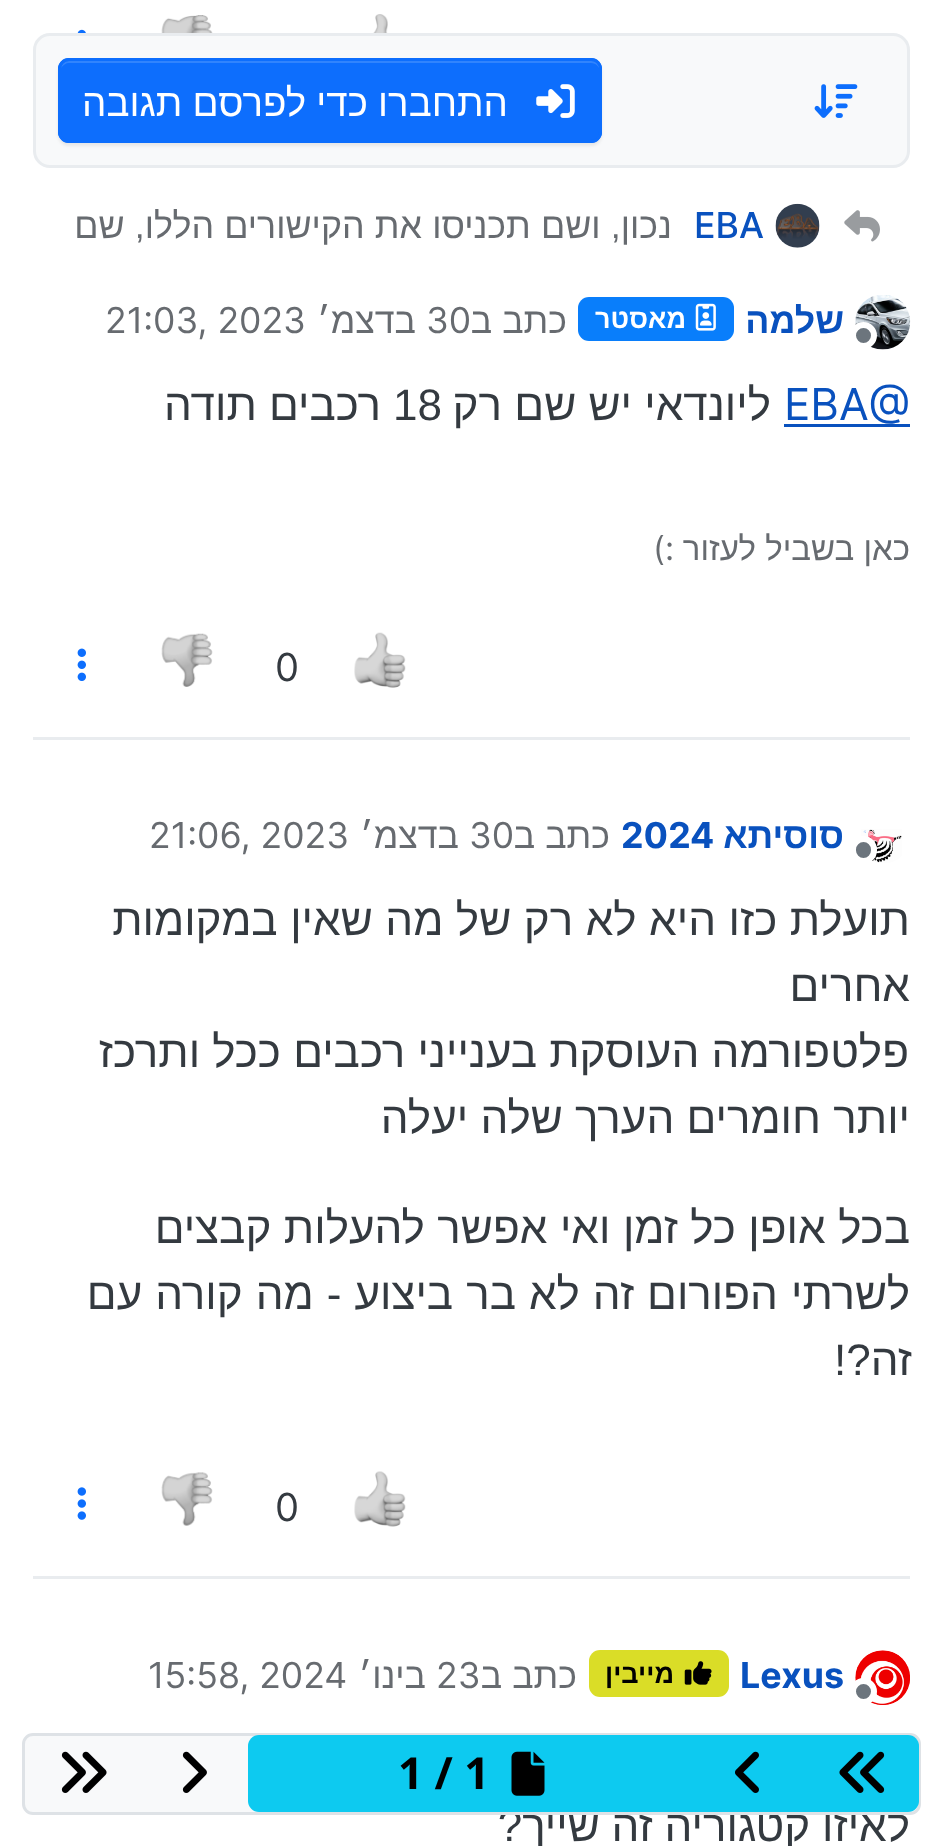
<!DOCTYPE html>
<meta charset="utf-8">
<style>body { margin: 0 } canvas { display: block }</style>
<canvas id="canvas" width="943" height="1846"></canvas>
<script type="module">
  const canvas = document.getElementById("canvas");
  const ctx = canvas.getContext("2d");
  ctx.miterLimit = 4;
  ctx.fontKerning = "normal";
  async function loadImage(src) {
    const img = new Image();
    img.src = src;
    await img.decode();
    return img;
  }

  ctx.fillStyle = "#ffffff";
  ctx.fillRect(0, 0, 943, 1846);
  ctx.fillStyle = "#f8f9fa";
  ctx.beginPath();
  ctx.roundRect(34.5, 34.5, 874, 132, 15.5);
  ctx.fill();
  ctx.strokeStyle = "#e9ecef";
  ctx.lineWidth = 3;
  ctx.stroke();
  ctx.drawImage(await loadImage("img1.png"), 814, 84, 44, 34);
  ctx.fillStyle = "rgba(0, 0, 0, 0.07)";
  ctx.filter = "blur(1.5px)";
  ctx.beginPath();
  ctx.roundRect(58, 61, 544, 85, 11);
  ctx.fill();
  ctx.filter = "none";
  ctx.fillStyle = "#0d6efd";
  ctx.beginPath();
  ctx.roundRect(58, 58, 544, 85, 11);
  ctx.fill();
  ctx.fillStyle = "#3184fd";
  ctx.beginPath();
  ctx.moveTo(69, 63);
  ctx.lineTo(591, 63);
  ctx.bezierCurveTo(596, 63, 600, 67, 600, 72);
  ctx.bezierCurveTo(600, 67, 598, 61, 592, 61);
  ctx.lineTo(69, 61);
  ctx.bezierCurveTo(65, 61, 62, 64, 61, 68);
  ctx.bezierCurveTo(63, 65, 66, 63, 69, 63);
  ctx.closePath();
  ctx.fill();
  ctx.beginPath();
  ctx.roundRect(59.5, 59.5, 541, 82, 9.5);
  ctx.strokeStyle = "#0d6efd";
  ctx.stroke();
  ctx.drawImage(await loadImage("img2.png"), 536, 84, 39, 34);
  ctx.wordSpacing = "-0.5px";
  ctx.direction = "rtl";
  ctx.font = "38.5px Liberation Sans";
  ctx.fillStyle = "#ffffff";
  ctx.fillText("התחברו כדי לפרסם תגובה", 508, 116);
  ctx.drawImage(await loadImage("img3.png"), 373, 14, 15, 19);
  ctx.drawImage(await loadImage("img4.png"), 161, 15, 52, 18);
  ctx.drawImage(await loadImage("img5.png"), 77, 29, 9, 4);
  ctx.drawImage(await loadImage("img6.png"), 844, 210, 36, 32);
  ctx.drawImage(await loadImage("img7.png"), 775, 203, 45, 45);
  ctx.wordSpacing = "0px";
  ctx.direction = "ltr";
  ctx.font = "500 35.75px Inter";
  ctx.fillStyle = "#0951be";
  ctx.fillText("EBA", 694, 238);
  ctx.wordSpacing = "0.25px";
  ctx.direction = "rtl";
  ctx.font = "35.75px Liberation Sans";
  ctx.fillStyle = "#676b70";
  ctx.fillText("נכון, ושם תכניסו את הקישורים הללו, שם", 672, 238);
  ctx.drawImage(await loadImage("img8.png"), 855, 295, 56, 55);
  ctx.fillStyle = "#6c757d";
  ctx.beginPath();
  ctx.arc(863.5, 335.5, 10.5, 0, Math.PI * 2);
  ctx.fill();
  ctx.strokeStyle = "#ffffff";
  ctx.lineWidth = 6;
  ctx.stroke();
  ctx.wordSpacing = "0px";
  ctx.font = "bold 35.75px Liberation Sans";
  ctx.fillStyle = "#0951be";
  ctx.fillText("שלמה", 844, 333);
  ctx.fillStyle = "#097efb";
  ctx.beginPath();
  ctx.roundRect(578, 297, 156, 44, 11);
  ctx.fill();
  ctx.drawImage(await loadImage("img9.png"), 695, 303, 21, 28);
  ctx.font = "bold 27px Liberation Sans";
  ctx.fillStyle = "#ffffff";
  ctx.fillText("מאסטר", 686, 328);
  ctx.font = "35.75px Liberation Sans";
  ctx.fillStyle = "#676b70";
  ctx.fillText("כתב ב", 567, 333);
  ctx.direction = "ltr";
  ctx.font = "35.75px Inter";
  ctx.fillText("30", 426, 333);
  ctx.direction = "rtl";
  ctx.font = "35.75px Liberation Sans";
  ctx.fillText("בדצמ׳", 416, 333);
  ctx.direction = "ltr";
  ctx.font = "35.75px Inter";
  ctx.fillText("21:03, 2023", 105, 333);
  ctx.fillStyle = "#0951be";
  ctx.fillRect(784, 424, 126, 3);
  ctx.font = "44px Inter";
  ctx.fillText("EBA@", 784, 420);
  ctx.direction = "rtl";
  ctx.font = "44px Liberation Sans";
  ctx.fillStyle = "#343a40";
  ctx.fillText("ליונדאי יש שם רק", 771, 420);
  ctx.direction = "ltr";
  ctx.fillText("18", 393, 420);
  ctx.direction = "rtl";
  ctx.fillText("רכבים תודה", 381, 420);
  ctx.fillStyle = "#e9ecef";
  ctx.fillRect(33, 737, 877, 3);
  ctx.font = "33px Liberation Sans";
  ctx.fillStyle = "#676b70";
  ctx.fillText("כאן בשביל לעזור", 910, 560);
  ctx.font = "33px Inter";
  ctx.fillText(":)", 674, 560);
  ctx.drawImage(await loadImage("img10.png"), 354, 632, 52, 56);
  ctx.direction = "ltr";
  ctx.font = "38.5px Inter";
  ctx.fillStyle = "#343a40";
  ctx.fillText("0", 275, 681);
  ctx.drawImage(await loadImage("img11.png"), 161, 633, 52, 54);
  ctx.drawImage(await loadImage("img12.png"), 77, 648, 9, 33);
  ctx.drawImage(await loadImage("img13.png"), 861, 829, 41, 34);
  ctx.fillStyle = "#6c757d";
  ctx.beginPath();
  ctx.roundRect(853, 839, 21, 22, 10.5);
  ctx.fill();
  ctx.stroke();
  ctx.direction = "rtl";
  ctx.font = "bold 35.75px Liberation Sans";
  ctx.fillStyle = "#0951be";
  ctx.fillText("סוסיתא", 844, 848);
  ctx.direction = "ltr";
  ctx.font = "bold 35.75px Inter";
  ctx.fillText("2024", 621, 848);
  ctx.direction = "rtl";
  ctx.font = "35.75px Liberation Sans";
  ctx.fillStyle = "#676b70";
  ctx.fillText("כתב ב", 610, 848);
  ctx.direction = "ltr";
  ctx.font = "35.75px Inter";
  ctx.fillText("30", 469, 848);
  ctx.direction = "rtl";
  ctx.font = "35.75px Liberation Sans";
  ctx.fillText("בדצמ׳", 459, 848);
  ctx.direction = "ltr";
  ctx.font = "35.75px Inter";
  ctx.fillText("21:06, 2023", 149, 848);
  ctx.wordSpacing = "0.25px";
  ctx.direction = "rtl";
  ctx.font = "44px Liberation Sans";
  ctx.fillStyle = "#343a40";
  ctx.fillText("תועלת כזו היא לא רק של מה שאין במקומות", 910, 935);
  ctx.wordSpacing = "0px";
  ctx.fillText("אחרים", 910, 1001);
  ctx.fillText("פלטפורמה העוסקת בענייני רכבים ככל ותרכז", 909, 1067);
  ctx.fillText("יותר חומרים הערך שלה יעלה", 910, 1133);
  ctx.wordSpacing = "0.25px";
  ctx.fillText("בכל אופן כל זמן ואי אפשר להעלות קבצים", 910, 1243);
  ctx.wordSpacing = "0.75px";
  ctx.fillText("לשרתי הפורום זה לא בר ביצוע - מה קורה עם", 910, 1309);
  ctx.wordSpacing = "0px";
  ctx.fillText("זה?!", 912, 1375);
  ctx.fillStyle = "#e9ecef";
  ctx.fillRect(33, 1576, 877, 3);
  ctx.drawImage(await loadImage("img14.png"), 354, 1471, 52, 56);
  ctx.direction = "ltr";
  ctx.font = "38.5px Inter";
  ctx.fillStyle = "#343a40";
  ctx.fillText("0", 275, 1521);
  ctx.drawImage(await loadImage("img15.png"), 161, 1472, 52, 54);
  ctx.drawImage(await loadImage("img16.png"), 77, 1487, 9, 33);
  ctx.drawImage(await loadImage("img17.png"), 855, 1650, 55, 55);
  ctx.fillStyle = "#6c757d";
  ctx.beginPath();
  ctx.arc(863.5, 1691.5, 10.5, 0, Math.PI * 2);
  ctx.fill();
  ctx.stroke();
  ctx.font = "bold 35.75px Inter";
  ctx.fillStyle = "#0951be";
  ctx.fillText("Lexus", 740, 1688);
  ctx.fillStyle = "#dadd27";
  ctx.beginPath();
  ctx.roundRect(589, 1650, 140, 47, 11);
  ctx.fill();
  ctx.drawImage(await loadImage("img18.png"), 684, 1661, 28, 24);
  ctx.direction = "rtl";
  ctx.font = "bold 27px Liberation Sans";
  ctx.fillStyle = "#000000";
  ctx.fillText("מייבין", 674, 1683);
  ctx.font = "35.75px Liberation Sans";
  ctx.fillStyle = "#676b70";
  ctx.fillText("כתב ב", 577, 1688);
  ctx.direction = "ltr";
  ctx.font = "35.75px Inter";
  ctx.fillText("23", 436, 1688);
  ctx.direction = "rtl";
  ctx.font = "35.75px Liberation Sans";
  ctx.fillText("בינו׳", 426, 1688);
  ctx.direction = "ltr";
  ctx.font = "35.75px Inter";
  ctx.fillText("15:58, 2024", 148, 1688);
  ctx.wordSpacing = "-0.5px";
  ctx.direction = "rtl";
  ctx.font = "44px Liberation Sans";
  ctx.fillStyle = "#343a40";
  ctx.fillText("לאיזו קטגוריה זה שייך?", 910, 1841);
  ctx.fillStyle = "#f8f9fa";
  ctx.beginPath();
  ctx.roundRect(23.5, 1734.5, 896, 79, 9.5);
  ctx.fill();
  ctx.strokeStyle = "#dee2e6";
  ctx.lineWidth = 3;
  ctx.stroke();
  ctx.fillStyle = "#0dcaf0";
  ctx.beginPath();
  ctx.roundRect(248, 1735, 671, 77, 11);
  ctx.fill();
  ctx.drawImage(await loadImage("img19.png"), 839, 1751, 46, 42);
  ctx.drawImage(await loadImage("img20.png"), 735, 1751, 24, 42);
  ctx.drawImage(await loadImage("img21.png"), 511, 1751, 34, 45);
  ctx.wordSpacing = "0px";
  ctx.direction = "ltr";
  ctx.font = "bold 44px Noto Sans";
  ctx.fillStyle = "#000000";
  ctx.fillText("1 / 1", 398, 1789);
  ctx.drawImage(await loadImage("img22.png"), 182, 1751, 25, 42);
  ctx.drawImage(await loadImage("img23.png"), 61, 1751, 46, 42);
</script>
